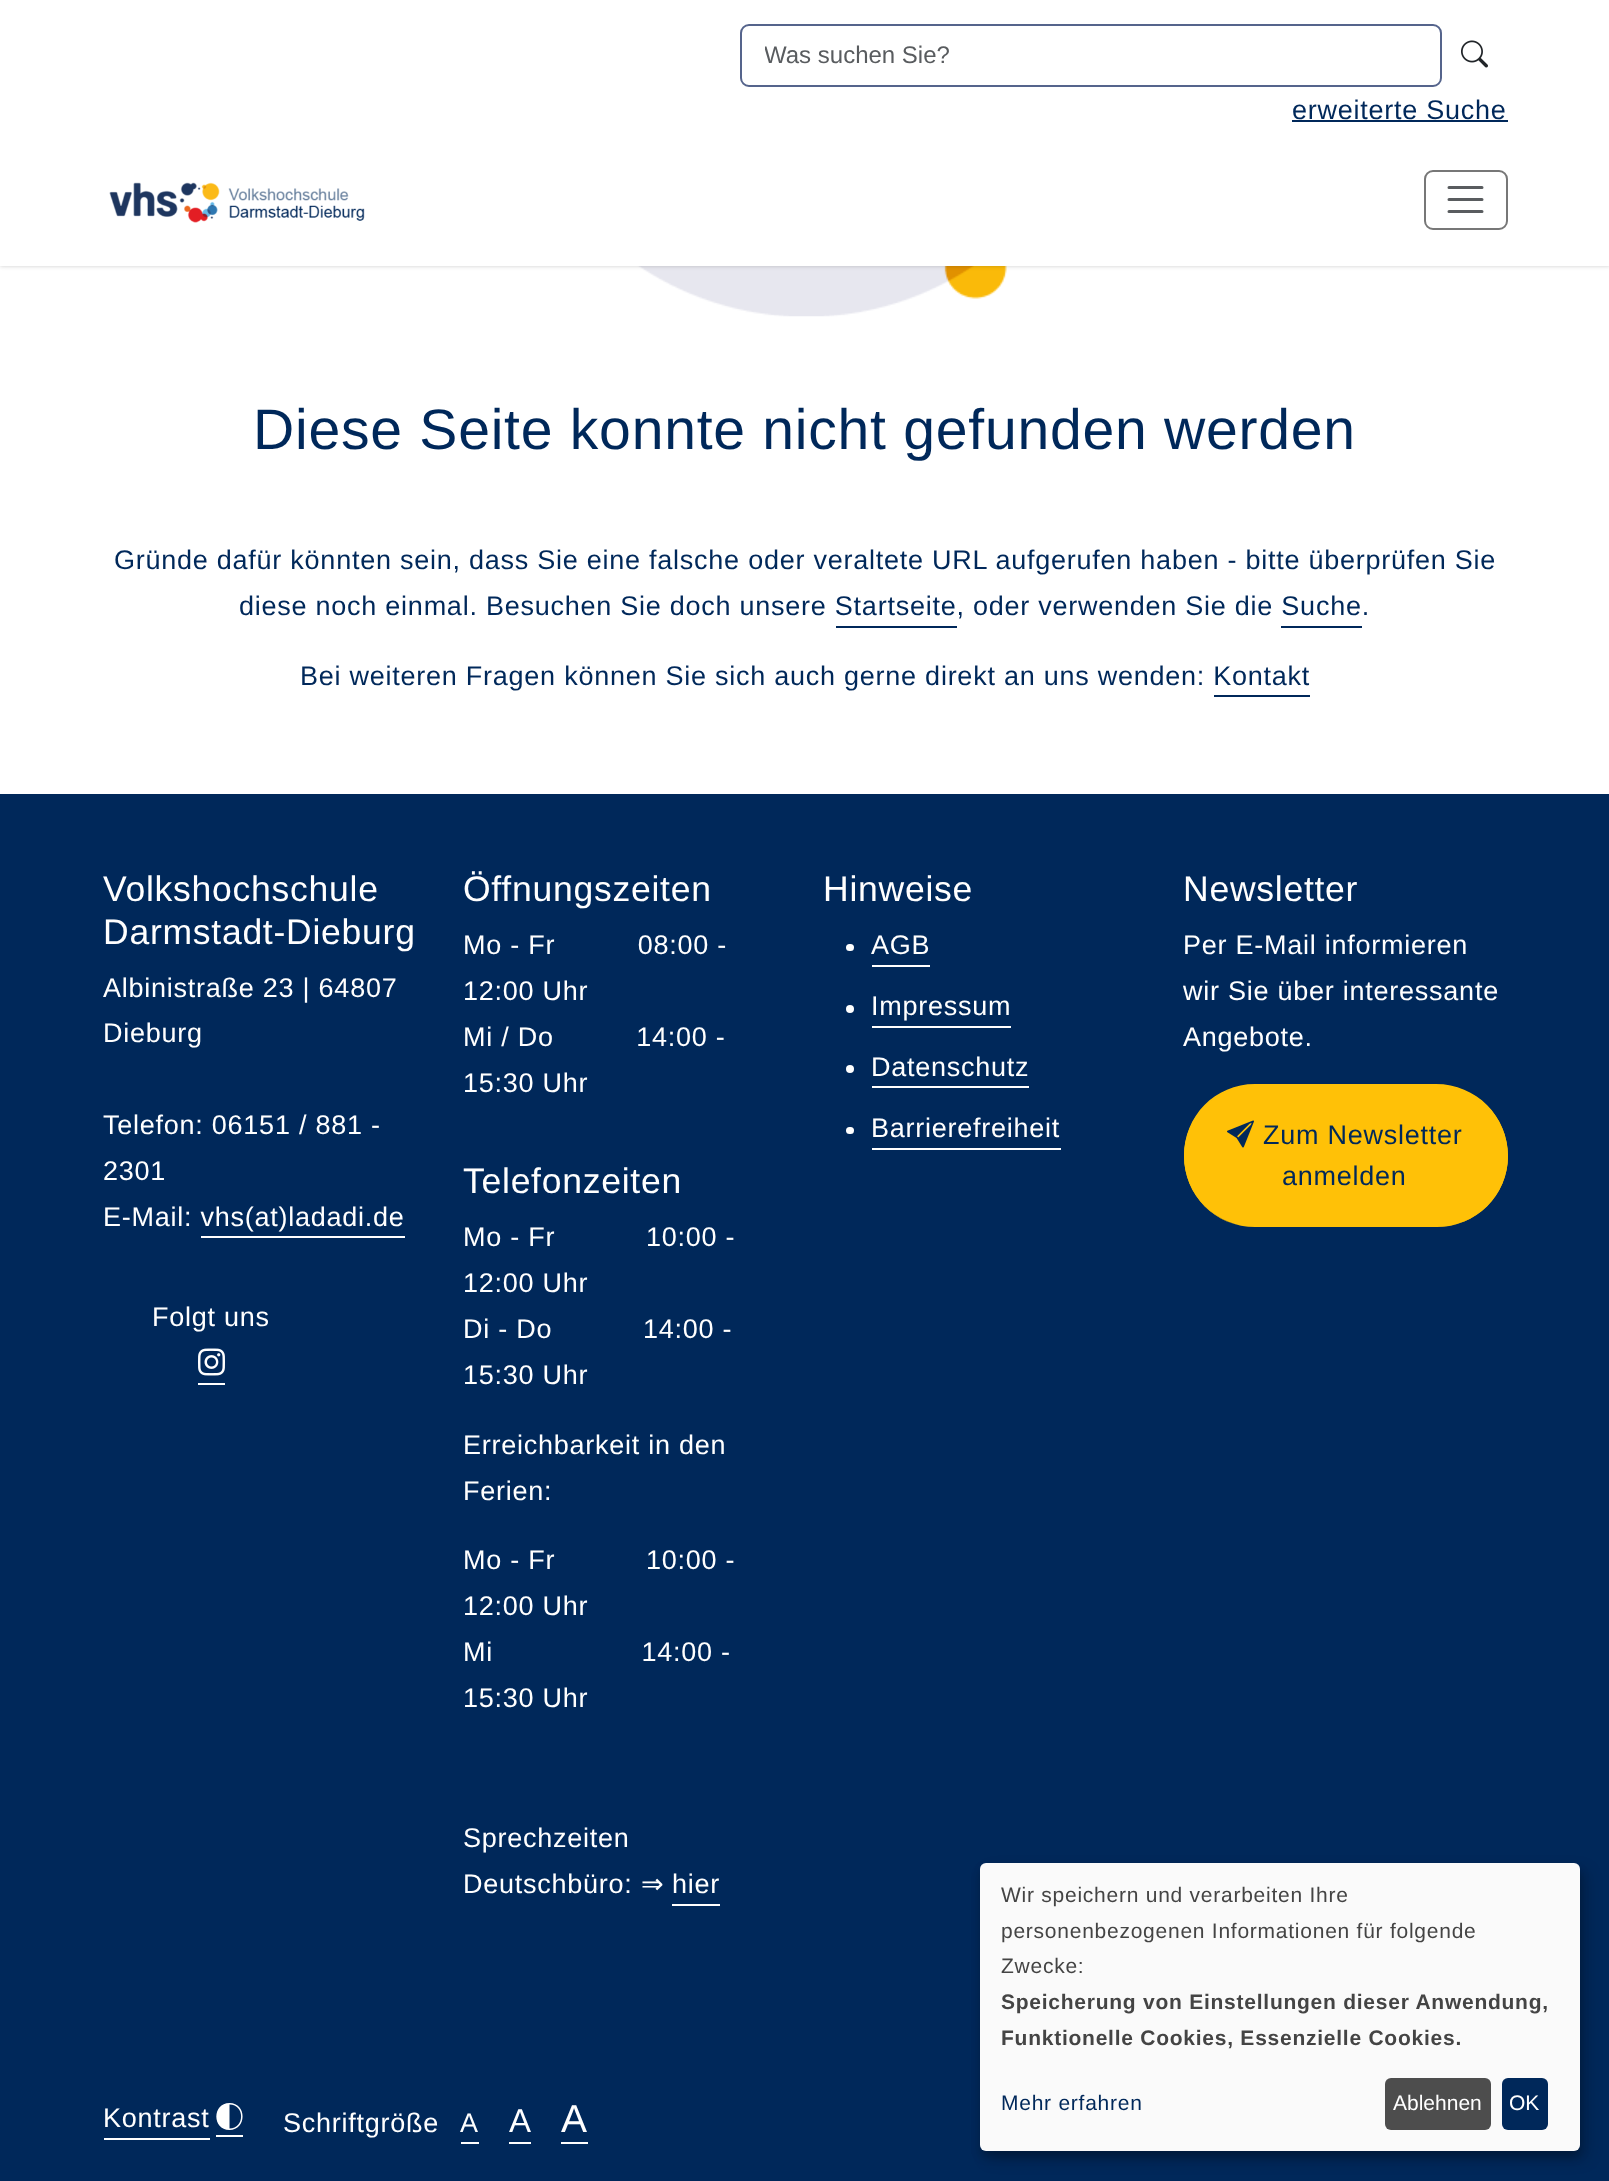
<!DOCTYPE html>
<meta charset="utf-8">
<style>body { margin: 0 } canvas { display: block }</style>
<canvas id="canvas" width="1609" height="2181"></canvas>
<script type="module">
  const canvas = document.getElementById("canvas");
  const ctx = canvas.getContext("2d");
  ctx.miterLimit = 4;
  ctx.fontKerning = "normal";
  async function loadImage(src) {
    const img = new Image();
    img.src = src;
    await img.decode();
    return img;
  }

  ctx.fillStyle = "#ffffff";
  ctx.fillRect(0, 0, 1609, 2181);
  ctx.drawImage(await loadImage("img3.png"), 637, 266, 370, 51);
  ctx.fillStyle = "rgba(0, 0, 0, 0.2)";
  ctx.filter = "blur(2px)";
  ctx.beginPath();
  ctx.rect(0, 0, 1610, 266);
  ctx.fill();
  ctx.filter = "none";
  ctx.fillStyle = "#ffffff";
  ctx.fillRect(0, 0, 1609, 266);
  ctx.beginPath();
  ctx.roundRect(741, 25, 700, 61, 8);
  ctx.strokeStyle = "#55648c";
  ctx.lineWidth = 2;
  ctx.stroke();
  ctx.save();
  ctx.beginPath();
  ctx.rect(765, 42, 651, 27);
  ctx.clip();
  ctx.font = "24px Liberation Sans";
  ctx.fillStyle = "#595c5f";
  ctx.fillText("Was suchen Sie?", 764, 63);
  ctx.restore();
  ctx.drawImage(await loadImage("img1.png"), 1461, 40, 27, 28);
  ctx.letterSpacing = "0.75px";
  ctx.font = "27px Liberation Sans";
  ctx.fillStyle = "#00285a";
  ctx.fillText("erweiterte Suche", 1292, 119);
  ctx.fillRect(1292, 120, 216, 2);
  ctx.drawImage(await loadImage("img2.png"), 109, 182, 256, 41);
  ctx.beginPath();
  ctx.roundRect(1425, 171, 82, 58, 8);
  ctx.strokeStyle = "#777777";
  ctx.stroke();
  ctx.beginPath();
  ctx.moveTo(1449, 187.5);
  ctx.lineTo(1482, 187.5);
  ctx.moveTo(1449, 199.5);
  ctx.lineTo(1482, 199.5);
  ctx.moveTo(1449, 211.5);
  ctx.lineTo(1482, 211.5);
  ctx.strokeStyle = "#595c5f";
  ctx.lineWidth = 3;
  ctx.lineCap = "round";
  ctx.stroke();
  ctx.font = "57.1px Liberation Sans";
  ctx.fillText("Diese Seite konnte nicht gefunden werden", 253, 449);
  ctx.font = "27px Liberation Sans";
  ctx.fillText("Gründe dafür könnten sein, dass Sie eine falsche oder veraltete URL aufgerufen haben - bitte überprüfen Sie", 114, 569);
  ctx.fillText("diese noch einmal. Besuchen Sie doch unsere Startseite, oder verwenden Sie die Suche.", 239, 615);
  ctx.fillRect(836, 626, 121, 2);
  ctx.fillRect(1281, 626, 81, 2);
  ctx.fillText("Bei weiteren Fragen können Sie sich auch gerne direkt an uns wenden: Kontakt", 300, 685);
  ctx.fillRect(1214, 695, 96, 2);
  ctx.fillRect(0, 794, 1609, 1387);
  ctx.font = "35.5px Liberation Sans";
  ctx.fillStyle = "#ffffff";
  ctx.fillText("Volkshochschule", 103, 901);
  ctx.fillText("Darmstadt-Dieburg", 103, 944);
  ctx.font = "27px Liberation Sans";
  ctx.fillText("Albinistraße 23 | 64807", 103, 997);
  ctx.fillText("Dieburg", 103, 1042);
  ctx.fillText("Telefon: 06151 / 881 -", 103, 1134);
  ctx.fillText("2301", 103, 1180);
  ctx.fillText("E-Mail: vhs(at)ladadi.de", 103, 1226);
  ctx.fillRect(201, 1236, 204, 2);
  ctx.fillText("Folgt uns", 152, 1326);
  ctx.fillRect(198, 1383, 27, 2);
  ctx.drawImage(await loadImage("img4.png"), 198, 1348, 27, 28);
  ctx.font = "35.5px Liberation Sans";
  ctx.fillText("Öffnungszeiten", 463, 901);
  ctx.font = "27px Liberation Sans";
  ctx.fillText("Mo - Fr          08:00 -", 463, 954);
  ctx.fillText("12:00 Uhr", 463, 1000);
  ctx.fillText("Mi / Do          14:00 -", 463, 1046);
  ctx.fillText("15:30 Uhr", 463, 1092);
  ctx.font = "35.5px Liberation Sans";
  ctx.fillText("Telefonzeiten", 463, 1193);
  ctx.font = "27px Liberation Sans";
  ctx.fillText("Mo - Fr           10:00 -", 463, 1246);
  ctx.fillText("12:00 Uhr", 463, 1292);
  ctx.fillText("Di - Do           14:00 -", 463, 1338);
  ctx.fillText("15:30 Uhr", 463, 1384);
  ctx.fillText("Erreichbarkeit in den", 463, 1454);
  ctx.fillText("Ferien:", 463, 1500);
  ctx.fillText("Mo - Fr           10:00 -", 463, 1569);
  ctx.fillText("12:00 Uhr", 463, 1615);
  ctx.fillText("Mi                  14:00 -", 463, 1661);
  ctx.fillText("15:30 Uhr", 463, 1707);
  ctx.fillText("Sprechzeiten", 463, 1847);
  ctx.fillText("Deutschbüro:", 463, 1893);
  ctx.font = "27px DejaVu Sans";
  ctx.fillText("⇒", 641, 1893);
  ctx.font = "27px Liberation Sans";
  ctx.fillText("hier", 672, 1893);
  ctx.fillRect(672, 1904, 48, 2);
  ctx.font = "35.5px Liberation Sans";
  ctx.fillText("Hinweise", 823, 901);
  ctx.beginPath();
  ctx.roundRect(846, 944, 8, 7, 3.5);
  ctx.fill();
  ctx.font = "27px Liberation Sans";
  ctx.fillText("AGB", 871, 954);
  ctx.fillRect(872, 965, 58, 2);
  ctx.beginPath();
  ctx.arc(850, 1009, 4, 0, Math.PI * 2);
  ctx.fill();
  ctx.fillText("Impressum", 871, 1015);
  ctx.fillRect(872, 1026, 139, 2);
  ctx.beginPath();
  ctx.arc(850, 1069, 4, 0, Math.PI * 2);
  ctx.fill();
  ctx.fillText("Datenschutz", 871, 1076);
  ctx.fillRect(872, 1086, 157, 2);
  ctx.beginPath();
  ctx.roundRect(846, 1127, 8, 7, 3.5);
  ctx.fill();
  ctx.fillText("Barrierefreiheit", 871, 1137);
  ctx.fillRect(872, 1148, 189, 2);
  ctx.font = "35.5px Liberation Sans";
  ctx.fillText("Newsletter", 1183, 901);
  ctx.font = "27px Liberation Sans";
  ctx.fillText("Per E-Mail informieren", 1183, 954);
  ctx.fillText("wir Sie über interessante", 1183, 1000);
  ctx.fillText("Angebote.", 1183, 1046);
  ctx.fillStyle = "#ffc107";
  ctx.beginPath();
  ctx.roundRect(1184, 1085, 324, 142, 71);
  ctx.fill();
  ctx.beginPath();
  ctx.moveTo(1255, 1084);
  ctx.lineTo(1436, 1084);
  ctx.bezierCurveTo(1476, 1084, 1508, 1116, 1508, 1156);
  ctx.bezierCurveTo(1508, 1195, 1476, 1227, 1436, 1227);
  ctx.lineTo(1255, 1227);
  ctx.bezierCurveTo(1215, 1227, 1184, 1195, 1184, 1156);
  ctx.bezierCurveTo(1184, 1116, 1215, 1084, 1255, 1084);
  ctx.closePath();
  ctx.moveTo(1255, 1086);
  ctx.lineTo(1436, 1086);
  ctx.bezierCurveTo(1475, 1086, 1506, 1117, 1506, 1156);
  ctx.bezierCurveTo(1506, 1195, 1475, 1227, 1436, 1227);
  ctx.lineTo(1255, 1227);
  ctx.bezierCurveTo(1216, 1227, 1185, 1195, 1185, 1156);
  ctx.bezierCurveTo(1185, 1117, 1216, 1086, 1255, 1086);
  ctx.closePath();
  ctx.fill("evenodd");
  ctx.drawImage(await loadImage("img5.png"), 1227, 1120, 27, 28);
  ctx.fillStyle = "#00285a";
  ctx.fillText("Zum Newsletter", 1263, 1144);
  ctx.fillText("anmelden", 1282, 1185);
  ctx.fillStyle = "#ffffff";
  ctx.fillRect(104, 2138, 106, 2);
  ctx.fillRect(216, 2135, 27, 2);
  ctx.fillText("Kontrast", 103, 2127);
  ctx.beginPath();
  ctx.moveTo(229.5, 2128.5);
  ctx.bezierCurveTo(245, 2128.5, 245, 2104.5, 229.5, 2104.5);
  ctx.closePath();
  ctx.moveTo(229.5, 2130);
  ctx.bezierCurveTo(212, 2130, 212, 2103, 229.5, 2103);
  ctx.bezierCurveTo(247, 2103, 247, 2130, 229.5, 2130);
  ctx.closePath();
  ctx.fill();
  ctx.fillText("Schriftgröße", 283, 2132);
  ctx.fillText("A", 460, 2132);
  ctx.fillRect(461, 2142, 18, 2);
  ctx.font = "33px Liberation Sans";
  ctx.fillText("A", 509, 2132);
  ctx.fillRect(509, 2142, 22, 2);
  ctx.font = "39px Liberation Sans";
  ctx.fillText("A", 561, 2132);
  ctx.fillRect(561, 2142, 27, 2);
  ctx.fillStyle = "rgba(0, 0, 0, 0.19)";
  ctx.filter = "blur(7.5px)";
  ctx.beginPath();
  ctx.roundRect(987, 1871, 600, 288, 6);
  ctx.fill();
  ctx.filter = "none";
  ctx.fillStyle = "rgba(0, 0, 0, 0.2)";
  ctx.filter = "blur(4.5px)";
  ctx.beginPath();
  ctx.roundRect(980, 1869, 600, 288, 6);
  ctx.fill();
  ctx.filter = "none";
  ctx.fillStyle = "#fafafa";
  ctx.beginPath();
  ctx.roundRect(980, 1863, 600, 288, 6);
  ctx.fill();
  ctx.font = "21px Liberation Sans";
  ctx.fillStyle = "#444444";
  ctx.fillText("Wir speichern und verarbeiten Ihre", 1001, 1902);
  ctx.fillText("personenbezogenen Informationen für folgende", 1001, 1938);
  ctx.fillText("Zwecke:", 1001, 1973);
  ctx.font = "bold 21px Liberation Sans";
  ctx.fillText("Speicherung von Einstellungen dieser Anwendung,", 1001, 2009);
  ctx.fillText("Funktionelle Cookies, Essenzielle Cookies.", 1001, 2045);
  ctx.font = "21px Liberation Sans";
  ctx.fillStyle = "#00285a";
  ctx.fillText("Mehr erfahren", 1001, 2110);
  ctx.fillStyle = "#4d4d4d";
  ctx.beginPath();
  ctx.roundRect(1385, 2078, 106, 52, 6);
  ctx.fill();
  ctx.letterSpacing = "0px";
  ctx.fillStyle = "#ffffff";
  ctx.fillText("Ablehnen", 1393, 2110);
  ctx.fillStyle = "#00285a";
  ctx.beginPath();
  ctx.roundRect(1502, 2078, 46, 52, 6);
  ctx.fill();
  ctx.fillStyle = "#ffffff";
  ctx.fillText("OK", 1509, 2110);
</script>
